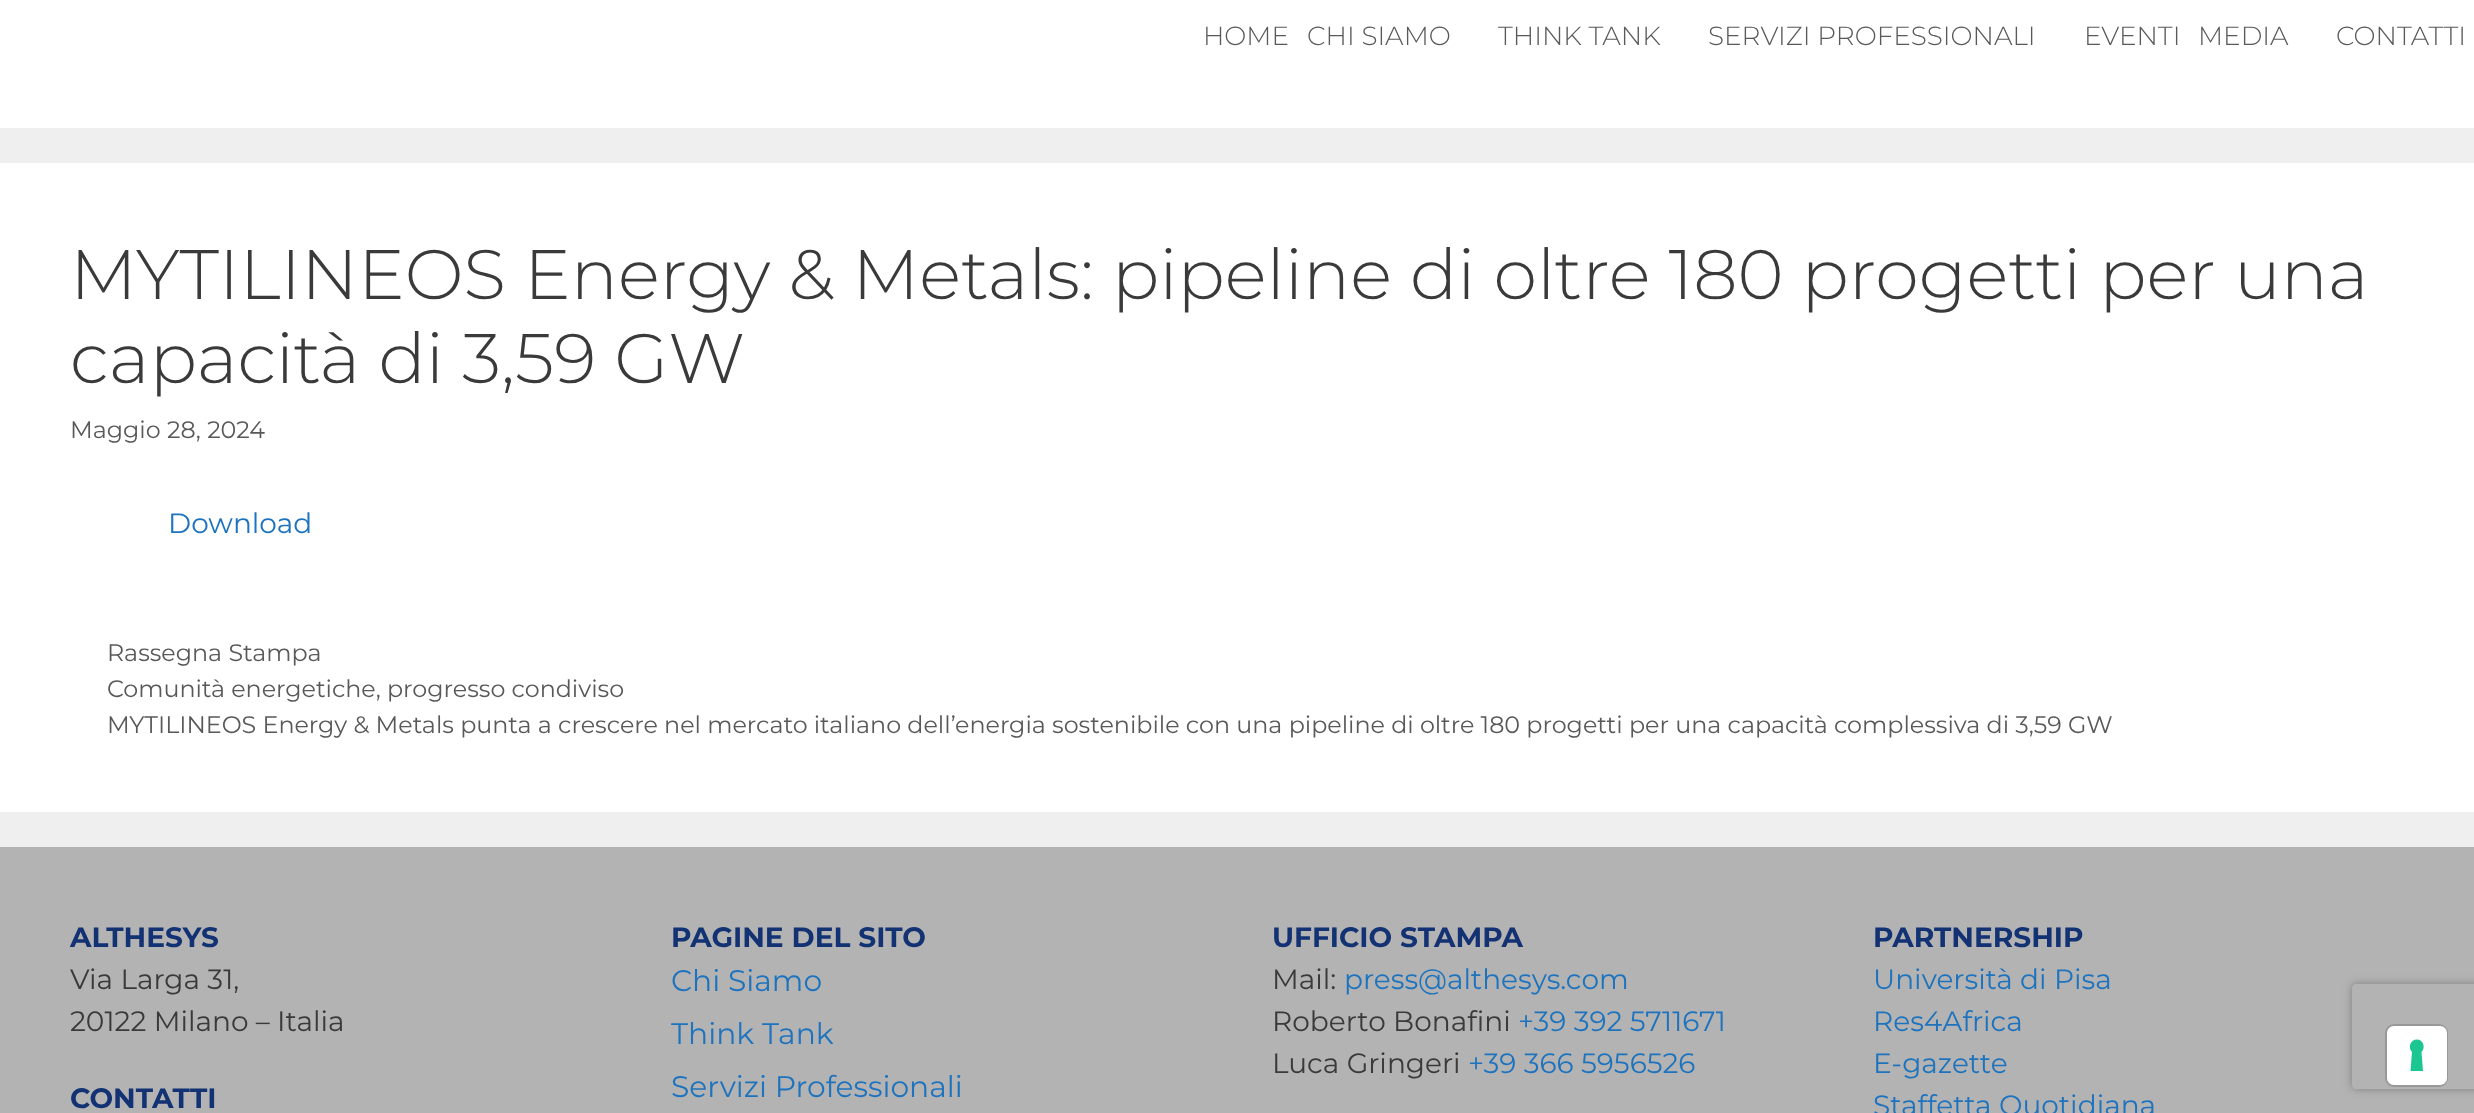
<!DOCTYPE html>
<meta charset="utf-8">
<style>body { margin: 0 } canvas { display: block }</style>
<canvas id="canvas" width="2474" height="1113"></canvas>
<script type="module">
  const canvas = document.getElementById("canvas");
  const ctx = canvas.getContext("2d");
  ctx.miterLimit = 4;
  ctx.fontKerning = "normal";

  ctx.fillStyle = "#efefef";
  ctx.fillRect(0, 0, 2474, 1113);
  ctx.fillStyle = "#ffffff";
  ctx.fillRect(0, 0, 2474, 128);
  ctx.font = "300 26.25px Montserrat";
  ctx.fillStyle = "#595959";
  ctx.fillText("HOME", 1203, 45);
  ctx.fillText("CHI SIAMO", 1307, 45);
  ctx.fillText("THINK TANK", 1498, 45);
  ctx.fillText("SERVIZI PROFESSIONALI", 1708, 45);
  ctx.fillText("EVENTI", 2084, 45);
  ctx.fillText("MEDIA", 2198, 45);
  ctx.fillText("CONTATTI", 2336, 45);
  ctx.fillStyle = "#ffffff";
  ctx.fillRect(0, 163, 2474, 649);
  ctx.font = "300 70px Montserrat";
  ctx.fillStyle = "#3a3a3a";
  ctx.fillText("MYTILINEOS Energy & Metals: pipeline di oltre 180 progetti per una", 70, 299);
  ctx.fillText("capacità di 3,59 GW", 70, 383);
  ctx.font = "23.8px Montserrat";
  ctx.fillStyle = "#595959";
  ctx.fillText("Maggio 28, 2024", 70, 438);
  ctx.font = "28px Montserrat";
  ctx.fillStyle = "#1e73be";
  ctx.fillText("Download", 168, 533);
  ctx.font = "23.8px Montserrat";
  ctx.fillStyle = "#595959";
  ctx.fillText("Rassegna Stampa", 107, 661);
  ctx.fillText("Comunità energetiche, progresso condiviso", 107, 697);
  ctx.fillText("MYTILINEOS Energy & Metals punta a crescere nel mercato italiano dell’energia sostenibile con una pipeline di oltre 180 progetti per una capacità complessiva di 3,59 GW", 107, 733);
  ctx.fillStyle = "#b3b3b3";
  ctx.fillRect(0, 847, 2474, 266);
  ctx.font = "bold 28px Montserrat";
  ctx.fillStyle = "#123274";
  ctx.fillText("ALTHESYS", 70, 947);
  ctx.font = "28px Montserrat";
  ctx.fillStyle = "#3a3a3a";
  ctx.fillText("Via Larga 31,", 70, 989);
  ctx.fillText("20122 Milano – Italia", 70, 1031);
  ctx.font = "bold 28px Montserrat";
  ctx.fillStyle = "#123274";
  ctx.fillText("CONTATTI", 70, 1108);
  ctx.fillText("PAGINE DEL SITO", 671, 947);
  ctx.font = "29.75px Montserrat";
  ctx.fillStyle = "#1e73be";
  ctx.fillText("Chi Siamo", 671, 991);
  ctx.fillText("Think Tank", 671, 1044);
  ctx.fillText("Servizi Professionali", 671, 1097);
  ctx.font = "bold 28px Montserrat";
  ctx.fillStyle = "#123274";
  ctx.fillText("UFFICIO STAMPA", 1272, 947);
  ctx.font = "28px Montserrat";
  ctx.fillStyle = "#3a3a3a";
  ctx.fillText("Mail:", 1272, 989);
  ctx.fillStyle = "#1e73be";
  ctx.fillText("press@althesys.com", 1344, 989);
  ctx.fillStyle = "#3a3a3a";
  ctx.fillText("Roberto Bonafini", 1272, 1031);
  ctx.fillStyle = "#1e73be";
  ctx.fillText("+39 392 5711671", 1518, 1031);
  ctx.fillStyle = "#3a3a3a";
  ctx.fillText("Luca Gringeri", 1272, 1073);
  ctx.fillStyle = "#1e73be";
  ctx.fillText("+39 366 5956526", 1468, 1073);
  ctx.font = "bold 28px Montserrat";
  ctx.fillStyle = "#123274";
  ctx.fillText("PARTNERSHIP", 1873, 947);
  ctx.font = "28px Montserrat";
  ctx.fillStyle = "#1e73be";
  ctx.fillText("Università di Pisa", 1873, 989);
  ctx.fillText("Res4Africa", 1873, 1031);
  ctx.fillText("E-gazette", 1873, 1073);
  ctx.fillText("Staffetta Quotidiana", 1873, 1115);
  ctx.save();
  ctx.beginPath();
  ctx.moveTo(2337, 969);
  ctx.lineTo(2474, 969);
  ctx.lineTo(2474, 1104);
  ctx.lineTo(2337, 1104);
  ctx.closePath();
  ctx.moveTo(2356, 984);
  ctx.lineTo(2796, 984);
  ctx.bezierCurveTo(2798, 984, 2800, 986, 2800, 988);
  ctx.lineTo(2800, 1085);
  ctx.bezierCurveTo(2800, 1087, 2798, 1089, 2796, 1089);
  ctx.lineTo(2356, 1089);
  ctx.bezierCurveTo(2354, 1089, 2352, 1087, 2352, 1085);
  ctx.lineTo(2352, 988);
  ctx.bezierCurveTo(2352, 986, 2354, 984, 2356, 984);
  ctx.closePath();
  ctx.clip("evenodd");
  ctx.fillStyle = "#808080";
  ctx.filter = "blur(4.5px)";
  ctx.beginPath();
  ctx.roundRect(2352, 984, 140, 105, 4);
  ctx.fill();
  ctx.filter = "none";
  ctx.restore();
  ctx.beginPath();
  ctx.roundRect(2386, 1025, 61, 61, 8);
  ctx.strokeStyle = "#989898";
  ctx.lineWidth = 2;
  ctx.stroke();
  ctx.fillStyle = "#ffffff";
  ctx.beginPath();
  ctx.roundRect(2387, 1026, 60, 59, 7);
  ctx.fill();
  ctx.fillStyle = "#1cc691";
  ctx.beginPath();
  ctx.moveTo(2417, 1039.5);
  ctx.bezierCurveTo(2423, 1039.5, 2426, 1047.5, 2421.5, 1052);
  ctx.lineTo(2423, 1071);
  ctx.lineTo(2410.5, 1071);
  ctx.lineTo(2412, 1052);
  ctx.bezierCurveTo(2407.5, 1047.5, 2410.5, 1039.5, 2417, 1039.5);
  ctx.closePath();
  ctx.fill("evenodd");
</script>
